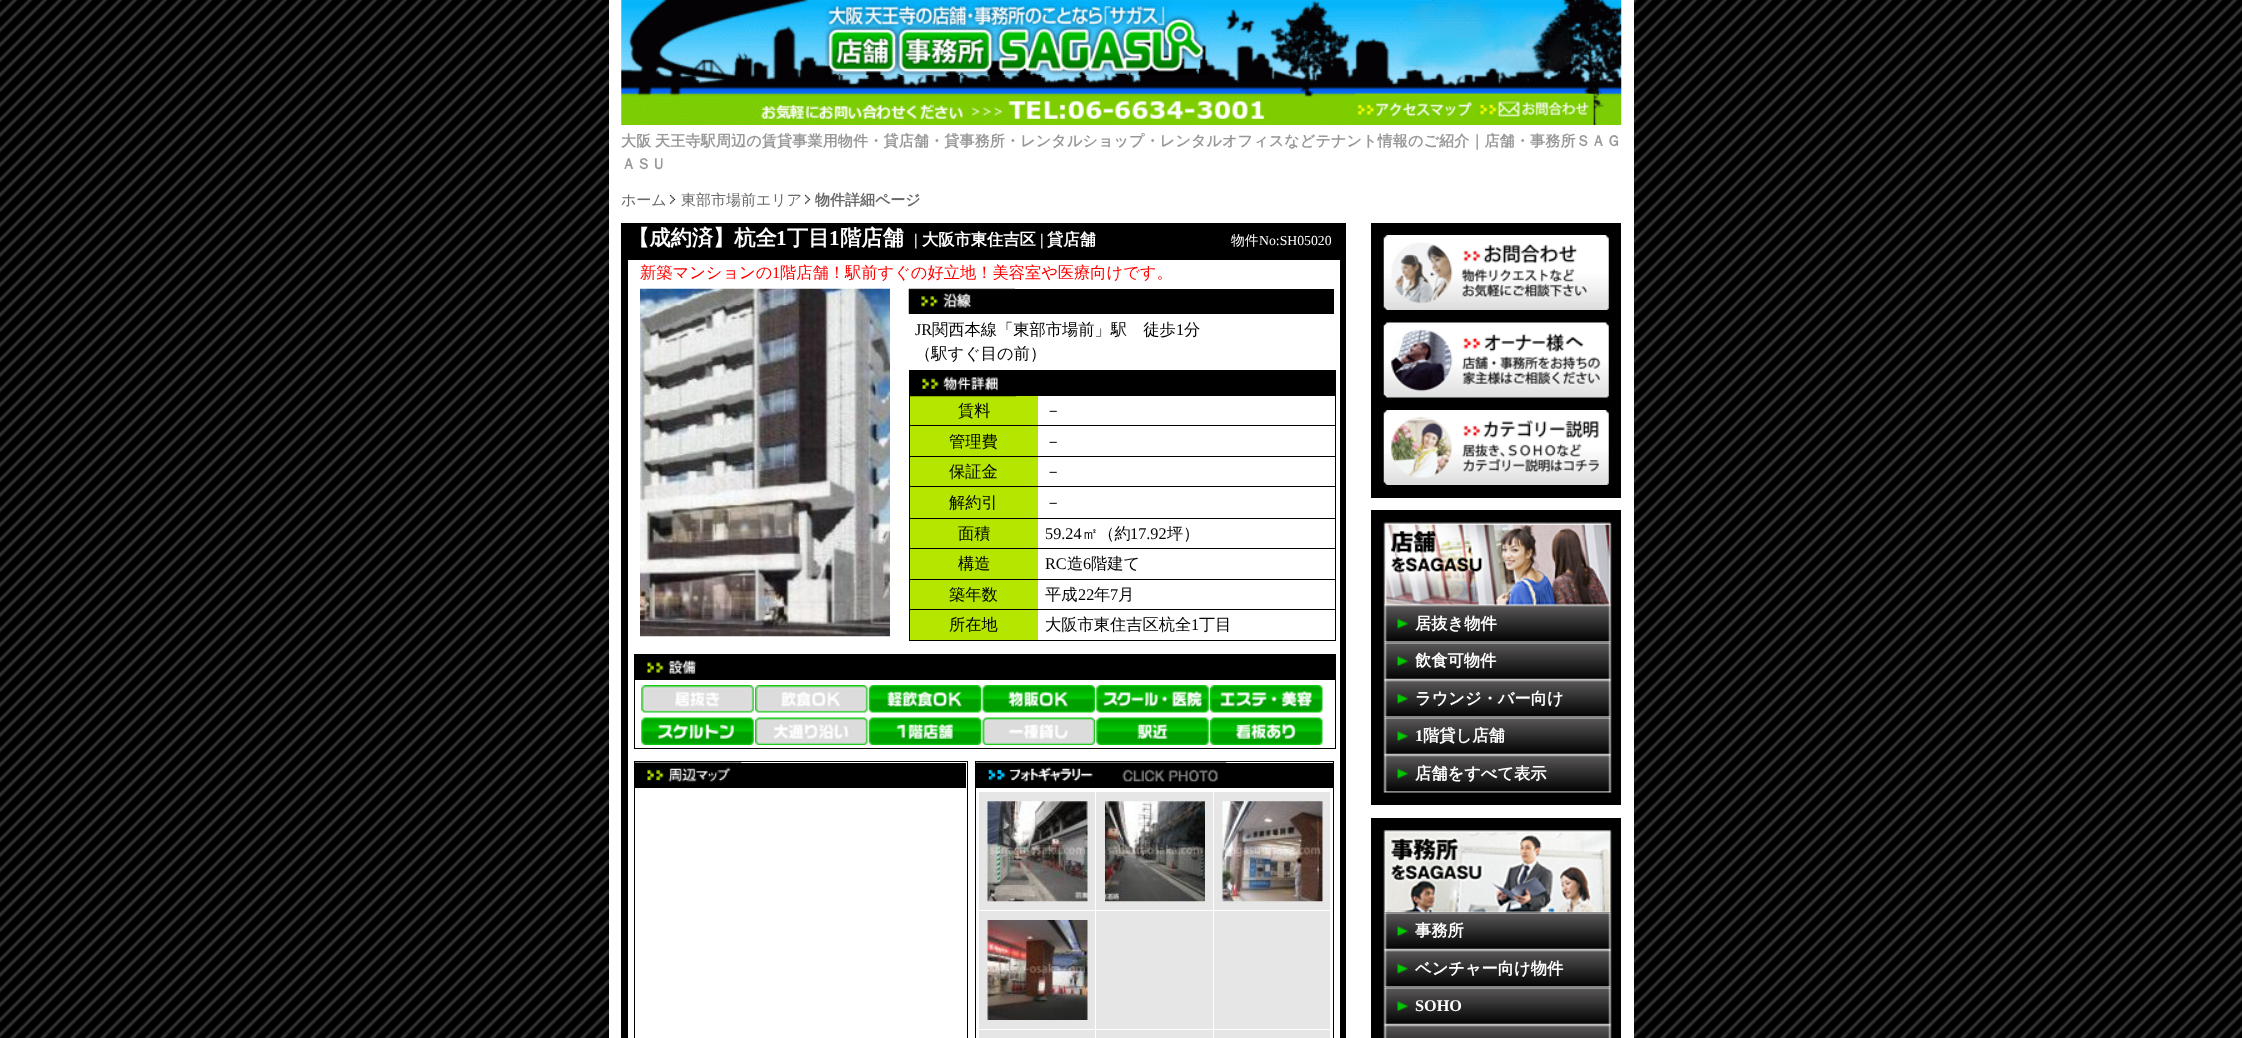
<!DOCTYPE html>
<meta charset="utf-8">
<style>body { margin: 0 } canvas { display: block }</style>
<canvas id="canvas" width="2242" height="1038"></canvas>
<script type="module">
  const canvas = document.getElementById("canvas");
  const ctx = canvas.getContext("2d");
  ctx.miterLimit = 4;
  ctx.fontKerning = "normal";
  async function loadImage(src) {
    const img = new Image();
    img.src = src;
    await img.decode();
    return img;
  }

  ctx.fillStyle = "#ffffff";
  ctx.fillRect(0, 0, 2242, 1038);
  ctx.drawImage(await loadImage("img1.png"), 0, 0, 2242, 1038);
  ctx.fillRect(609, 0, 1025, 1038);
  ctx.drawImage(await loadImage("img2.png"), 621, 0, 1001, 125);
  ctx.drawImage(await loadImage("img3.png"), 825, 4, 384, 71);
  ctx.drawImage(await loadImage("img4.png"), 1355, 93, 119, 32);
  ctx.drawImage(await loadImage("img5.png"), 1473, 93, 121, 32);
  ctx.letterSpacing = "0.2px";
  ctx.wordSpacing = "-1px";
  ctx.font = "bold 15px WenQuanYi Zen Hei";
  ctx.fillStyle = "#999999";
  ctx.fillText("大阪 天王寺駅周辺の賃貸事業用物件・貸店舗・貸事務所・レンタルショップ・レンタルオフィスなどテナント情報のご紹介｜店舗・事務所ＳＡＧ", 621, 146);
  ctx.letterSpacing = "0px";
  ctx.wordSpacing = "0px";
  ctx.fillText("ＡＳＵ", 621, 169);
  ctx.font = "500 15px WenQuanYi Zen Hei";
  ctx.fillStyle = "#696969";
  ctx.fillText("ホーム", 621, 205);
  ctx.drawImage(await loadImage("img6.png"), 669, 194, 7, 10);
  ctx.fillText("東部市場前エリア", 681, 205);
  ctx.drawImage(await loadImage("img6.png"), 804, 194, 7, 10);
  ctx.font = "bold 15px WenQuanYi Zen Hei";
  ctx.fillText("物件詳細ページ", 815, 205);
  ctx.fillStyle = "#000000";
  ctx.fillRect(621, 223, 725, 815);
  ctx.font = "bold 21.25px WenQuanYi Zen Hei";
  ctx.fillStyle = "#ffffff";
  ctx.fillText("【成約済】杭全", 628, 245);
  ctx.font = "bold 21.25px Liberation Serif";
  ctx.fillText("1", 776, 245);
  ctx.font = "bold 21.25px WenQuanYi Zen Hei";
  ctx.fillText("丁目", 787, 245);
  ctx.font = "bold 21.25px Liberation Serif";
  ctx.fillText("1", 829, 245);
  ctx.font = "bold 21.25px WenQuanYi Zen Hei";
  ctx.fillText("階店舗", 840, 245);
  ctx.font = "bold 16.25px Liberation Serif";
  ctx.fillText("|", 914, 245);
  ctx.font = "bold 16.25px WenQuanYi Zen Hei";
  ctx.fillText("大阪市東住吉区", 922, 245);
  ctx.font = "bold 16.25px Liberation Serif";
  ctx.fillText("|", 1040, 245);
  ctx.font = "bold 16.25px WenQuanYi Zen Hei";
  ctx.fillText("貸店舗", 1047, 245);
  ctx.font = "500 13.75px WenQuanYi Zen Hei";
  ctx.fillText("物件", 1231, 245);
  ctx.font = "13.75px Liberation Serif";
  ctx.fillText("No:SH05020", 1259, 245);
  ctx.fillRect(628, 260, 712, 778);
  ctx.font = "500 16.25px WenQuanYi Zen Hei";
  ctx.fillStyle = "#ff0000";
  ctx.fillText("新築マンションの", 640, 278);
  ctx.font = "16.25px Liberation Serif";
  ctx.fillText("1", 772, 278);
  ctx.font = "500 16.25px WenQuanYi Zen Hei";
  ctx.fillText("階店舗！駅前すぐの好立地！美容室や医療向けです。", 780, 278);
  ctx.drawImage(await loadImage("img7.png"), 640, 288, 250, 349);
  ctx.fillStyle = "#000000";
  ctx.fillRect(909, 289, 425, 25);
  ctx.drawImage(await loadImage("img8.png"), 908, 288, 107, 26);
  ctx.font = "16.25px Liberation Serif";
  ctx.fillText("JR", 915, 335);
  ctx.font = "500 16.25px WenQuanYi Zen Hei";
  ctx.fillText("関西本線「東部市場前」駅　徒歩", 932, 335);
  ctx.font = "16.25px Liberation Serif";
  ctx.fillText("1", 1176, 335);
  ctx.font = "500 16.25px WenQuanYi Zen Hei";
  ctx.fillText("分", 1184, 335);
  ctx.fillText("（駅すぐ目の前）", 915, 359);
  ctx.strokeStyle = "#000000";
  ctx.strokeRect(909.5, 370.5, 426, 270);
  ctx.fillRect(910, 371, 425, 25);
  ctx.fillStyle = "#b4e600";
  ctx.fillRect(910, 396, 128, 29);
  ctx.drawImage(await loadImage("img9.png"), 910, 376, 107, 21);
  ctx.fillStyle = "#000000";
  ctx.fillText("賃料", 958, 416);
  ctx.fillRect(910, 425, 426, 1);
  ctx.fillText("－", 1045, 416);
  ctx.fillStyle = "#b4e600";
  ctx.fillRect(910, 426, 128, 30);
  ctx.fillStyle = "#000000";
  ctx.fillText("管理費", 949, 447);
  ctx.fillRect(910, 456, 426, 1);
  ctx.fillText("－", 1045, 447);
  ctx.fillStyle = "#b4e600";
  ctx.fillRect(910, 457, 128, 61);
  ctx.fillStyle = "#000000";
  ctx.fillText("保証金", 949, 477);
  ctx.fillRect(910, 486, 426, 1);
  ctx.fillText("－", 1045, 477);
  ctx.fillText("解約引", 949, 508);
  ctx.fillRect(910, 518, 426, 1);
  ctx.fillText("－", 1045, 508);
  ctx.fillStyle = "#b4e600";
  ctx.fillRect(910, 519, 128, 29);
  ctx.fillStyle = "#000000";
  ctx.fillText("面積", 958, 539);
  ctx.fillRect(910, 548, 426, 1);
  ctx.font = "16.25px Liberation Serif";
  ctx.fillText("59.24", 1045, 539);
  ctx.font = "500 16.25px WenQuanYi Zen Hei";
  ctx.fillText("㎡（約", 1082, 539);
  ctx.font = "16.25px Liberation Serif";
  ctx.fillText("17.92", 1130, 539);
  ctx.font = "500 16.25px WenQuanYi Zen Hei";
  ctx.fillText("坪）", 1167, 539);
  ctx.fillStyle = "#b4e600";
  ctx.fillRect(910, 549, 128, 30);
  ctx.fillStyle = "#000000";
  ctx.fillText("構造", 958, 569);
  ctx.fillRect(910, 579, 426, 1);
  ctx.font = "16.25px Liberation Serif";
  ctx.fillText("RC", 1045, 569);
  ctx.font = "500 16.25px WenQuanYi Zen Hei";
  ctx.fillText("造", 1067, 569);
  ctx.font = "16.25px Liberation Serif";
  ctx.fillText("6", 1083, 569);
  ctx.font = "500 16.25px WenQuanYi Zen Hei";
  ctx.fillText("階建て", 1091, 569);
  ctx.fillStyle = "#b4e600";
  ctx.fillRect(910, 580, 128, 29);
  ctx.fillStyle = "#000000";
  ctx.fillText("築年数", 949, 600);
  ctx.fillRect(910, 609, 426, 1);
  ctx.fillText("平成", 1045, 600);
  ctx.font = "16.25px Liberation Serif";
  ctx.fillText("22", 1078, 600);
  ctx.font = "500 16.25px WenQuanYi Zen Hei";
  ctx.fillText("年", 1094, 600);
  ctx.font = "16.25px Liberation Serif";
  ctx.fillText("7", 1110, 600);
  ctx.font = "500 16.25px WenQuanYi Zen Hei";
  ctx.fillText("月", 1118, 600);
  ctx.fillStyle = "#b4e600";
  ctx.fillRect(910, 610, 128, 30);
  ctx.fillStyle = "#000000";
  ctx.fillText("所在地", 949, 630);
  ctx.fillText("大阪市東住吉区杭全", 1045, 630);
  ctx.font = "16.25px Liberation Serif";
  ctx.fillText("1", 1191, 630);
  ctx.font = "500 16.25px WenQuanYi Zen Hei";
  ctx.fillText("丁目", 1199, 630);
  ctx.strokeRect(634.5, 654.5, 701, 94);
  ctx.fillRect(635, 655, 700, 25);
  ctx.drawImage(await loadImage("img10.png"), 647, 660, 50, 14);
  ctx.drawImage(await loadImage("img11.png"), 641, 685, 113, 28);
  ctx.drawImage(await loadImage("img12.png"), 755, 685, 113, 28);
  ctx.drawImage(await loadImage("img13.png"), 868, 685, 114, 28);
  ctx.drawImage(await loadImage("img14.png"), 982, 685, 113, 28);
  ctx.drawImage(await loadImage("img15.png"), 1096, 685, 113, 28);
  ctx.drawImage(await loadImage("img16.png"), 1210, 685, 113, 28);
  ctx.drawImage(await loadImage("img17.png"), 641, 717, 113, 28);
  ctx.drawImage(await loadImage("img18.png"), 755, 717, 113, 28);
  ctx.drawImage(await loadImage("img19.png"), 868, 717, 114, 28);
  ctx.drawImage(await loadImage("img20.png"), 982, 717, 113, 28);
  ctx.drawImage(await loadImage("img21.png"), 1096, 717, 113, 28);
  ctx.drawImage(await loadImage("img22.png"), 1210, 717, 113, 28);
  ctx.strokeRect(634.5, 761.5, 333, 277);
  ctx.fillRect(635, 763, 331, 25);
  ctx.drawImage(await loadImage("img23.png"), 635, 762, 107, 20);
  ctx.strokeRect(975.5, 761.5, 358, 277);
  ctx.fillRect(976, 763, 357, 25);
  ctx.drawImage(await loadImage("img24.png"), 976, 762, 251, 20);
  ctx.fillStyle = "#e6e6e6";
  ctx.fillRect(979, 792, 116, 118);
  ctx.drawImage(await loadImage("img25.png"), 987, 801, 101, 101);
  ctx.fillRect(1096, 792, 117, 118);
  ctx.drawImage(await loadImage("img26.png"), 1105, 801, 100, 101);
  ctx.fillRect(1214, 792, 116, 118);
  ctx.drawImage(await loadImage("img27.png"), 1222, 801, 101, 101);
  ctx.fillRect(979, 911, 116, 118);
  ctx.drawImage(await loadImage("img28.png"), 987, 920, 101, 100);
  ctx.fillRect(1096, 911, 117, 118);
  ctx.fillRect(1214, 911, 116, 118);
  ctx.fillRect(979, 1030, 116, 8);
  ctx.fillRect(1096, 1030, 117, 8);
  ctx.fillRect(1214, 1030, 116, 8);
  ctx.fillStyle = "#000000";
  ctx.fillRect(1371, 223, 250, 275);
  ctx.drawImage(await loadImage("img29.png"), 1383, 235, 226, 75);
  ctx.drawImage(await loadImage("img30.png"), 1383, 322, 226, 76);
  ctx.drawImage(await loadImage("img31.png"), 1383, 410, 226, 75);
  ctx.fillRect(1371, 510, 250, 295);
  ctx.drawImage(await loadImage("img32.png"), 1383, 522, 229, 83);
  ctx.drawImage(await loadImage("img33.png"), 1383, 605, 229, 38);
  ctx.font = "bold 16.25px WenQuanYi Zen Hei";
  ctx.fillStyle = "#ffffff";
  ctx.fillText("居抜き物件", 1415, 629);
  ctx.drawImage(await loadImage("img34.png"), 1383, 642, 229, 38);
  ctx.fillText("飲食可物件", 1415, 666);
  ctx.drawImage(await loadImage("img33.png"), 1383, 680, 229, 38);
  ctx.fillText("ラウンジ・バー向け", 1415, 704);
  ctx.drawImage(await loadImage("img34.png"), 1383, 717, 229, 38);
  ctx.font = "bold 16.25px Liberation Serif";
  ctx.fillText("1", 1415, 741);
  ctx.font = "bold 16.25px WenQuanYi Zen Hei";
  ctx.fillText("階貸し店舗", 1423, 741);
  ctx.drawImage(await loadImage("img33.png"), 1383, 755, 229, 38);
  ctx.fillText("店舗をすべて表示", 1415, 779);
  ctx.fillStyle = "#000000";
  ctx.fillRect(1371, 818, 250, 220);
  ctx.drawImage(await loadImage("img35.png"), 1383, 830, 229, 83);
  ctx.drawImage(await loadImage("img36.png"), 1383, 912, 229, 38);
  ctx.fillStyle = "#ffffff";
  ctx.fillText("事務所", 1415, 936);
  ctx.drawImage(await loadImage("img33.png"), 1383, 950, 229, 38);
  ctx.fillText("ベンチャー向け物件", 1415, 974);
  ctx.drawImage(await loadImage("img34.png"), 1383, 987, 229, 38);
  ctx.font = "bold 16.25px Liberation Serif";
  ctx.fillText("SOHO", 1415, 1011);
  ctx.drawImage(await loadImage("img37.png"), 1383, 1025, 229, 13);
</script>
